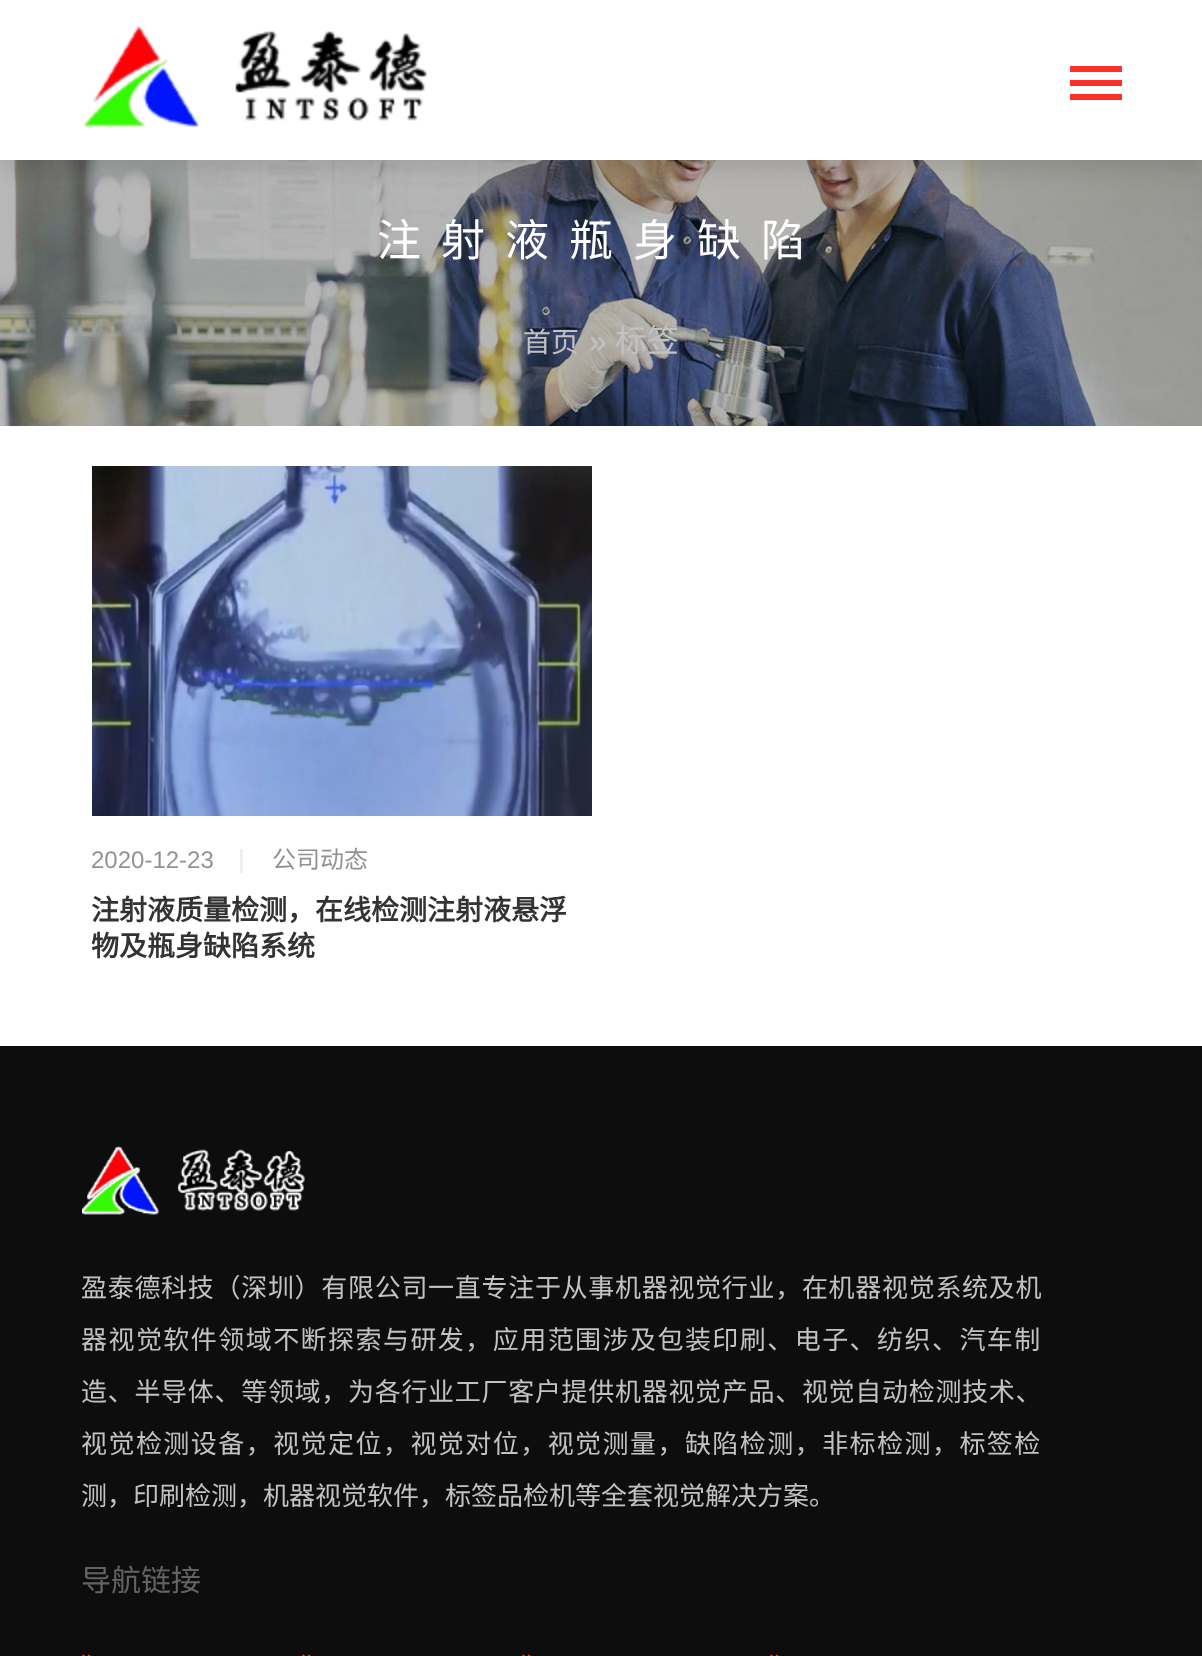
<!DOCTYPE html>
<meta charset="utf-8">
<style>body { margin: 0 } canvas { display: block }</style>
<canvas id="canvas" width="1202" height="1656"></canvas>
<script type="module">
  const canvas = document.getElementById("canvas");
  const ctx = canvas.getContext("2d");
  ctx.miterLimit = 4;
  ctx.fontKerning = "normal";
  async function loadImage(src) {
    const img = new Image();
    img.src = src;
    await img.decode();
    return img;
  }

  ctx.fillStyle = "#ffffff";
  ctx.fillRect(0, 0, 1202, 1656);
  ctx.drawImage(await loadImage("img2.png"), 0, 160, 1202, 266);
  ctx.fillStyle = "rgba(0, 0, 0, 0.1)";
  ctx.filter = "blur(10px)";
  ctx.beginPath();
  ctx.rect(0, 10, 1202, 160);
  ctx.fill();
  ctx.filter = "none";
  ctx.fillStyle = "#ffffff";
  ctx.fillRect(0, 0, 1202, 160);
  ctx.drawImage(await loadImage("img1.png"), 83, 25, 344, 102);
  ctx.fillStyle = "#fb3127";
  ctx.fillRect(1070, 66, 52, 6);
  ctx.fillRect(1070, 80, 52, 6);
  ctx.fillRect(1070, 94, 52, 6);
  ctx.letterSpacing = "20px";
  ctx.font = "44px Noto Sans CJK SC";
  ctx.fillStyle = "#ffffff";
  ctx.fillText("注射液瓶身缺陷", 377, 256);
  ctx.letterSpacing = "0px";
  ctx.font = "28px Noto Sans CJK SC";
  ctx.fillStyle = "#c2c2c2";
  ctx.fillText("首页", 523, 352);
  ctx.font = "32px Liberation Sans";
  ctx.fillText("»", 589, 352);
  ctx.font = "32px Noto Sans CJK SC";
  ctx.fillText("标签", 615, 352);
  ctx.drawImage(await loadImage("img3.png"), 92, 466, 500, 350);
  ctx.font = "24px Liberation Sans";
  ctx.fillStyle = "#929292";
  ctx.fillText("2020-12-23", 91, 868);
  ctx.font = "26px Liberation Sans";
  ctx.fillStyle = "#ebebeb";
  ctx.fillText("|", 238, 868);
  ctx.font = "24px Noto Sans CJK SC";
  ctx.fillStyle = "#929292";
  ctx.fillText("公司动态", 272, 868);
  ctx.font = "bold 28px Noto Sans CJK SC";
  ctx.fillStyle = "#333333";
  ctx.fillText("注射液质量检测，在线检测注射液悬浮", 91, 920);
  ctx.fillText("物及瓶身缺陷系统", 91, 956);
  ctx.fillStyle = "#0d0d0d";
  ctx.fillRect(0, 1046, 1202, 610);
  ctx.drawImage(await loadImage("img4.png"), 82, 1146, 223, 69);
  ctx.letterSpacing = "0.7px";
  ctx.font = "26px Noto Sans CJK SC";
  ctx.fillStyle = "#c2c2c2";
  ctx.fillText("盈泰德科技（深圳）有限公司一直专注于从事机器视觉行业，在机器视觉系统及机", 81, 1297);
  ctx.letterSpacing = "1.45px";
  ctx.fillText("器视觉软件领域不断探索与研发，应用范围涉及包装印刷、电子、纺织、汽车制", 81, 1349);
  ctx.letterSpacing = "0.7px";
  ctx.fillText("造、半导体、等领域，为各行业工厂客户提供机器视觉产品、视觉自动检测技术、", 81, 1401);
  ctx.letterSpacing = "1.45px";
  ctx.fillText("视觉检测设备，视觉定位，视觉对位，视觉测量，缺陷检测，非标检测，标签检", 81, 1453);
  ctx.letterSpacing = "0px";
  ctx.fillText("测，印刷检测，机器视觉软件，标签品检机等全套视觉解决方案。", 81, 1505);
  ctx.font = "30px Noto Sans CJK SC";
  ctx.fillStyle = "#636363";
  ctx.fillText("导航链接", 81, 1591);
  ctx.drawImage(await loadImage("img5.png"), 82, 1654, 9, 2);
  ctx.drawImage(await loadImage("img5.png"), 302, 1654, 9, 2);
  ctx.drawImage(await loadImage("img5.png"), 522, 1654, 9, 2);
  ctx.drawImage(await loadImage("img5.png"), 770, 1654, 9, 2);
</script>
